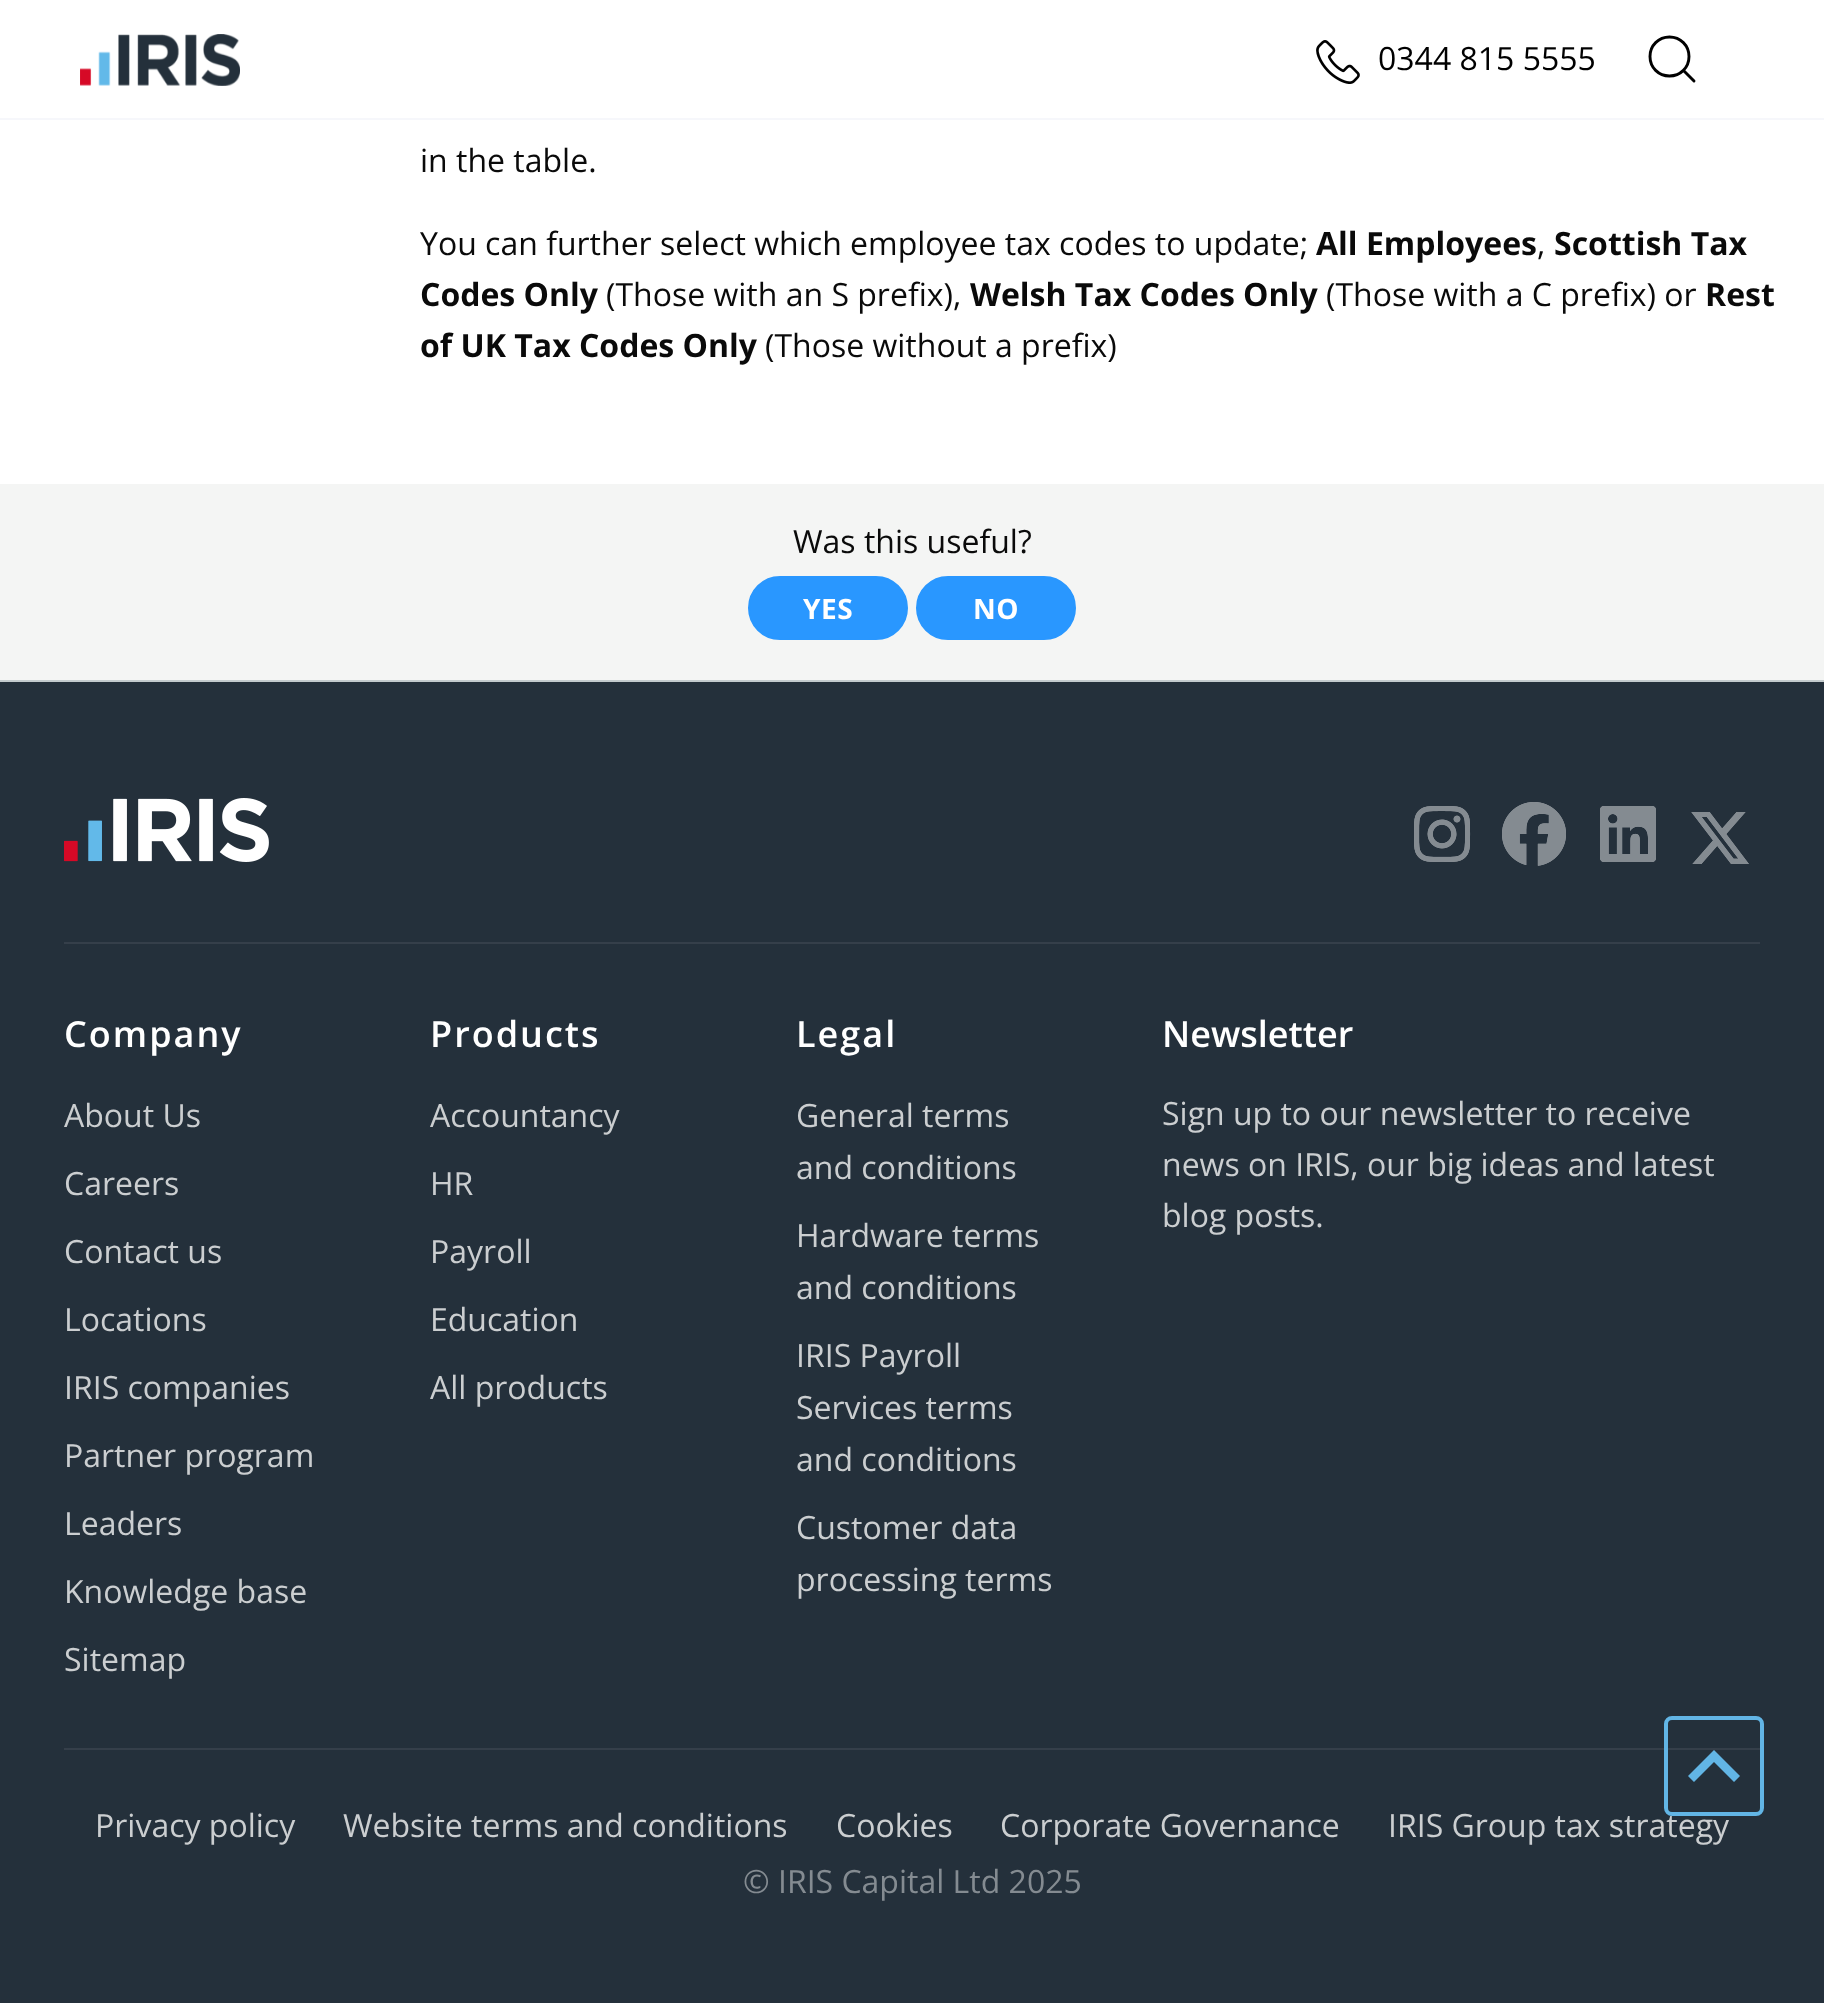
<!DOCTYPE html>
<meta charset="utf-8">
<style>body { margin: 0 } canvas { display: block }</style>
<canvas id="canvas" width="1824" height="2003"></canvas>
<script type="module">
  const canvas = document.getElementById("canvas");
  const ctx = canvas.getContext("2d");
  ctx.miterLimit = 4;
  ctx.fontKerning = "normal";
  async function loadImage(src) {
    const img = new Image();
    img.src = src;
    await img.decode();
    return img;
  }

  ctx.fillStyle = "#ffffff";
  ctx.fillRect(0, 0, 1824, 2003);
  ctx.fillStyle = "#f6f7fb";
  ctx.fillRect(0, 118, 1824, 2);
  ctx.drawImage(await loadImage("img1.png"), 80, 34, 160, 52);
  ctx.drawImage(await loadImage("img2.png"), 1316, 40, 44, 44);
  ctx.font = "32px Open Sans";
  ctx.fillStyle = "#000000";
  ctx.fillText("0344 815 5555", 1378, 70);
  ctx.beginPath();
  ctx.moveTo(1669.5, 76);
  ctx.bezierCurveTo(1680.5, 76, 1689, 67.5, 1689, 56.5);
  ctx.bezierCurveTo(1689, 45.5, 1680.5, 37, 1669.5, 37);
  ctx.bezierCurveTo(1658.5, 37, 1650, 45.5, 1650, 56.5);
  ctx.bezierCurveTo(1650, 67.5, 1658.5, 76, 1669.5, 76);
  ctx.closePath();
  ctx.moveTo(1694, 81);
  ctx.lineTo(1683.5, 70.5);
  ctx.strokeStyle = "#000000";
  ctx.lineWidth = 2.9;
  ctx.lineCap = "round";
  ctx.lineJoin = "round";
  ctx.stroke();
  ctx.fillStyle = "#0a0a0a";
  ctx.fillText("in the table.", 420, 172);
  ctx.fillText("You can further select which employee tax codes to update;", 420, 255);
  ctx.font = "bold 32px Open Sans";
  ctx.fillText("All Employees", 1316, 255);
  ctx.font = "32px Open Sans";
  ctx.fillText(",", 1537, 255);
  ctx.font = "bold 32px Open Sans";
  ctx.fillText("Scottish Tax", 1554, 255);
  ctx.fillText("Codes Only", 420, 306);
  ctx.font = "32px Open Sans";
  ctx.fillText("(Those with an S prefix),", 606, 306);
  ctx.font = "bold 32px Open Sans";
  ctx.fillText("Welsh Tax Codes Only", 970, 306);
  ctx.font = "32px Open Sans";
  ctx.fillText("(Those with a C prefix) or", 1326, 306);
  ctx.font = "bold 32px Open Sans";
  ctx.fillText("Rest", 1705, 306);
  ctx.fillText("of UK Tax Codes Only", 420, 357);
  ctx.font = "32px Open Sans";
  ctx.fillText("(Those without a prefix)", 765, 357);
  ctx.fillStyle = "#f4f5f4";
  ctx.fillRect(0, 484, 1824, 196);
  ctx.fillStyle = "#0a0a0a";
  ctx.fillText("Was this useful?", 793, 553);
  ctx.fillStyle = "#2997ff";
  ctx.beginPath();
  ctx.roundRect(749, 577, 158, 62, 31);
  ctx.fill();
  ctx.strokeStyle = "#2997ff";
  ctx.lineWidth = 2;
  ctx.lineJoin = "miter";
  ctx.stroke();
  ctx.letterSpacing = "0.5px";
  ctx.font = "bold 28px Open Sans";
  ctx.fillStyle = "#ffffff";
  ctx.fillText("YES", 803, 619);
  ctx.fillStyle = "#2997ff";
  ctx.beginPath();
  ctx.roundRect(917, 577, 158, 62, 31);
  ctx.fill();
  ctx.stroke();
  ctx.fillStyle = "#ffffff";
  ctx.fillText("NO", 973, 619);
  ctx.fillStyle = "#24303b";
  ctx.fillRect(0, 682, 1824, 1321);
  ctx.fillStyle = "#c3cbcd";
  ctx.fillRect(0, 680, 1824, 2);
  ctx.drawImage(await loadImage("img3.png"), 64, 798, 205, 64);
  ctx.drawImage(await loadImage("img4.png"), 1414, 806, 57, 56);
  ctx.drawImage(await loadImage("img5.png"), 1502, 802, 64, 64);
  ctx.drawImage(await loadImage("img6.png"), 1600, 806, 56, 56);
  ctx.drawImage(await loadImage("img7.png"), 1691, 812, 58, 52);
  ctx.fillStyle = "#353f4a";
  ctx.fillRect(64, 942, 1696, 2);
  ctx.letterSpacing = "2px";
  ctx.font = "600 36px Open Sans";
  ctx.fillStyle = "#ffffff";
  ctx.fillText("Company", 64, 1047);
  ctx.letterSpacing = "0px";
  ctx.font = "32px Open Sans";
  ctx.fillStyle = "#cbced0";
  ctx.fillText("About Us", 64, 1127);
  ctx.fillText("Careers", 64, 1195);
  ctx.fillText("Contact us", 64, 1263);
  ctx.fillText("Locations", 64, 1331);
  ctx.fillText("IRIS companies", 64, 1399);
  ctx.fillText("Partner program", 64, 1467);
  ctx.fillText("Leaders", 64, 1535);
  ctx.fillText("Knowledge base", 64, 1603);
  ctx.fillText("Sitemap", 64, 1671);
  ctx.letterSpacing = "2px";
  ctx.font = "600 36px Open Sans";
  ctx.fillStyle = "#ffffff";
  ctx.fillText("Products", 430, 1047);
  ctx.letterSpacing = "0px";
  ctx.font = "32px Open Sans";
  ctx.fillStyle = "#cbced0";
  ctx.fillText("Accountancy", 430, 1127);
  ctx.fillText("HR", 430, 1195);
  ctx.fillText("Payroll", 430, 1263);
  ctx.fillText("Education", 430, 1331);
  ctx.fillText("All products", 430, 1399);
  ctx.letterSpacing = "2px";
  ctx.font = "600 36px Open Sans";
  ctx.fillStyle = "#ffffff";
  ctx.fillText("Legal", 796, 1047);
  ctx.letterSpacing = "0px";
  ctx.font = "32px Open Sans";
  ctx.fillStyle = "#cbced0";
  ctx.fillText("General terms", 796, 1127);
  ctx.fillText("and conditions", 796, 1179);
  ctx.fillText("Hardware terms", 796, 1247);
  ctx.fillText("and conditions", 796, 1299);
  ctx.fillText("IRIS Payroll", 796, 1367);
  ctx.fillText("Services terms", 796, 1419);
  ctx.fillText("and conditions", 796, 1471);
  ctx.fillText("Customer data", 796, 1539);
  ctx.fillText("processing terms", 796, 1591);
  ctx.font = "600 36px Open Sans";
  ctx.fillStyle = "#ffffff";
  ctx.fillText("Newsletter", 1162, 1047);
  ctx.font = "32px Open Sans";
  ctx.fillStyle = "#cbced0";
  ctx.fillText("Sign up to our newsletter to receive", 1162, 1125);
  ctx.fillText("news on IRIS, our big ideas and latest", 1162, 1176);
  ctx.fillText("blog posts.", 1162, 1227);
  ctx.fillStyle = "#353f4a";
  ctx.fillRect(64, 1748, 1696, 2);
  ctx.fillStyle = "#cbced0";
  ctx.fillText("Privacy policy", 95, 1837);
  ctx.fillText("Website terms and conditions", 343, 1837);
  ctx.fillText("Cookies", 836, 1837);
  ctx.fillText("Corporate Governance", 1000, 1837);
  ctx.fillText("IRIS Group tax strategy", 1388, 1837);
  ctx.fillStyle = "#848b91";
  ctx.fillText("© IRIS Capital Ltd 2025", 743, 1893);
  ctx.beginPath();
  ctx.roundRect(1666, 1718, 96, 96, 6);
  ctx.strokeStyle = "#62b5e5";
  ctx.lineWidth = 4;
  ctx.stroke();
  ctx.fillStyle = "#62b5e5";
  ctx.beginPath();
  ctx.moveTo(1714, 1750);
  ctx.lineTo(1740, 1776);
  ctx.lineTo(1734, 1782);
  ctx.lineTo(1714, 1762);
  ctx.lineTo(1694, 1782);
  ctx.lineTo(1688, 1776);
  ctx.closePath();
  ctx.fill();
</script>
